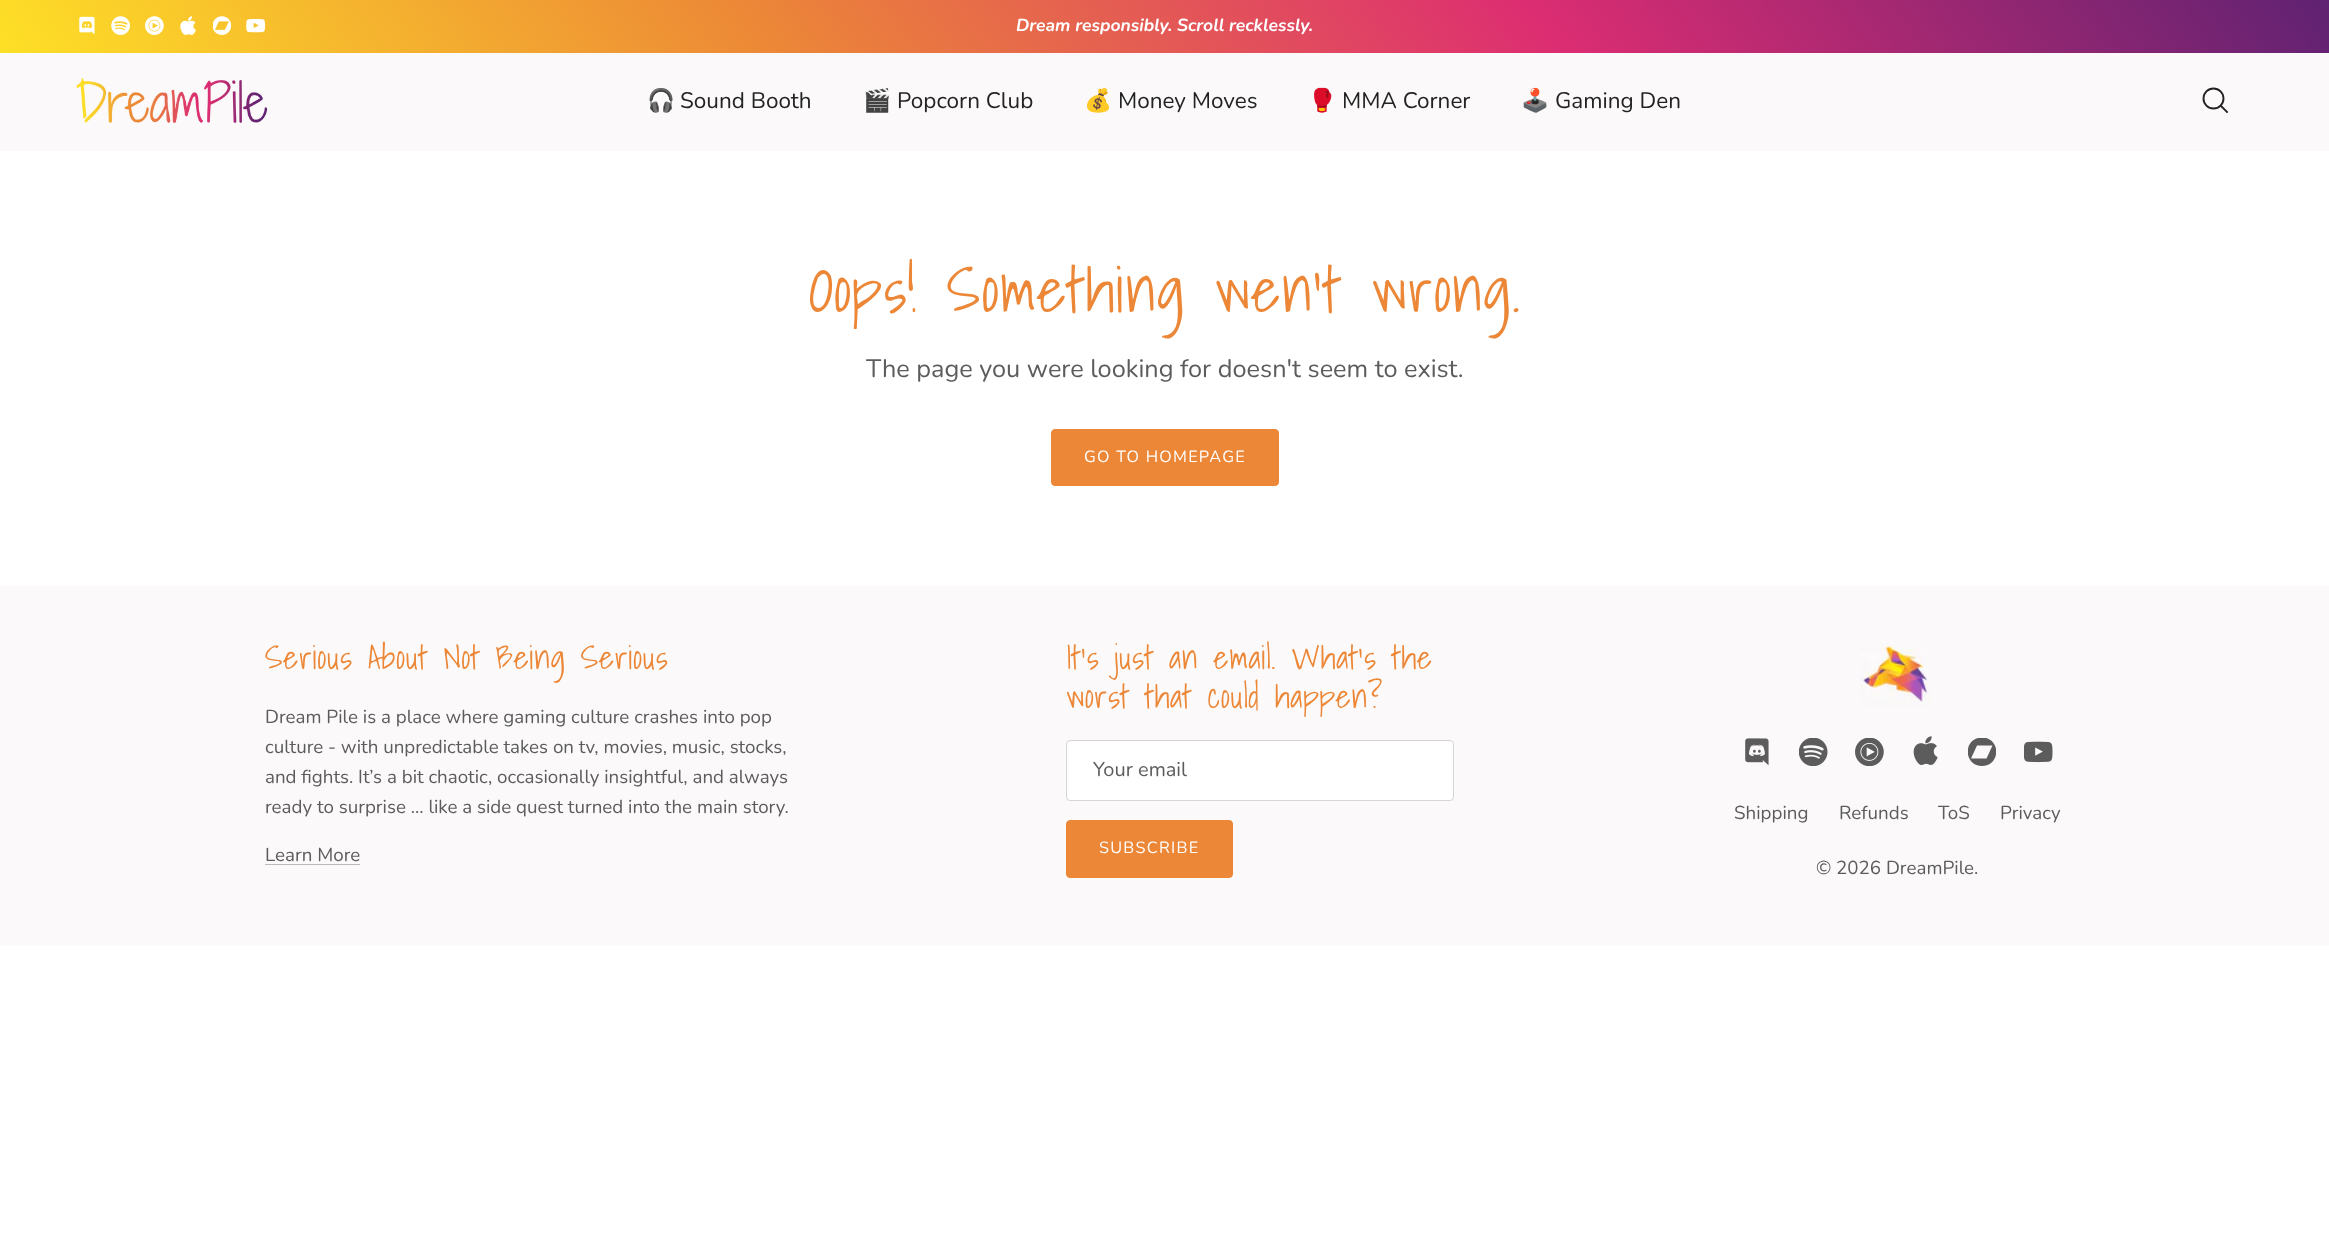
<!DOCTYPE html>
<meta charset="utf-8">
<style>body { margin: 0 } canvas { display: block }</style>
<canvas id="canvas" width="2329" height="1243"></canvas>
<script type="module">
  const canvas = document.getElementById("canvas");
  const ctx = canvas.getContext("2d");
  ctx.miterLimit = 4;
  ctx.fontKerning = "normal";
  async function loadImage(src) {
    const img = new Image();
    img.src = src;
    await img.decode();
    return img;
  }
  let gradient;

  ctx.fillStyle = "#ffffff";
  ctx.fillRect(0, 0, 2329, 1243);
  gradient = ctx.createLinearGradient(390, 589, 1940, -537);
  gradient.addColorStop(0, "#fee026");
  gradient.addColorStop(0.33, "#ec8737");
  gradient.addColorStop(0.66, "#dc2d72");
  gradient.addColorStop(1, "#5f2272");
  ctx.fillStyle = gradient;
  ctx.fillRect(0, 0, 2329, 53);
  ctx.drawImage(await loadImage("img1.png"), 79, 16, 16, 19);
  ctx.drawImage(await loadImage("img2.png"), 111, 16, 19, 19);
  ctx.drawImage(await loadImage("img3.png"), 145, 16, 19, 19);
  ctx.drawImage(await loadImage("img4.png"), 180, 16, 16, 19);
  ctx.drawImage(await loadImage("img5.png"), 213, 16, 18, 19);
  ctx.drawImage(await loadImage("img6.png"), 246, 19, 19, 14);
  ctx.font = "italic bold 17.5px Nunito";
  ctx.fillStyle = "#ffffff";
  ctx.fillText("Dream responsibly. Scroll recklessly.", 1016, 31);
  ctx.fillStyle = "#fbf9f9";
  ctx.fillRect(0, 53, 2329, 98);
  ctx.drawImage(await loadImage("img7.png"), 76, 78, 192, 45);
  ctx.font = "22.5px Noto Color Emoji";
  ctx.fillStyle = "#232323";
  ctx.fillText("🎧", 647, 108);
  ctx.font = "22.5px Nunito";
  ctx.fillText("Sound Booth", 680, 108);
  ctx.font = "22.5px Noto Color Emoji";
  ctx.fillText("🎬", 863, 108);
  ctx.font = "22.5px Nunito";
  ctx.fillText("Popcorn Club", 897, 108);
  ctx.font = "22.5px Noto Color Emoji";
  ctx.fillText("💰", 1084, 108);
  ctx.font = "22.5px Nunito";
  ctx.fillText("Money Moves", 1118, 108);
  ctx.font = "22.5px Noto Color Emoji";
  ctx.fillText("🥊", 1308, 108);
  ctx.font = "22.5px Nunito";
  ctx.fillText("MMA Corner", 1342, 108);
  ctx.font = "22.5px Noto Color Emoji";
  ctx.fillText("🕹️", 1521, 108);
  ctx.font = "22.5px Nunito";
  ctx.fillText("Gaming Den", 1555, 108);
  ctx.beginPath();
  ctx.arc(2213.5, 98.5, 10, 0, Math.PI * 2);
  ctx.strokeStyle = "#232323";
  ctx.lineWidth = 1.9;
  ctx.stroke();
  ctx.beginPath();
  ctx.moveTo(2221, 106);
  ctx.lineTo(2227, 112);
  ctx.lineCap = "square";
  ctx.stroke();
  ctx.letterSpacing = "1.25px";
  ctx.font = "62.5px Shadows Into Light";
  ctx.fillStyle = "#ec8737";
  ctx.fillText("Oops! Something wen't wrong.", 809, 312);
  ctx.letterSpacing = "0px";
  ctx.font = "25.3px Nunito";
  ctx.fillStyle = "#5c5c5c";
  ctx.fillText("The page you were looking for doesn't seem to exist.", 866, 377);
  ctx.fillStyle = "#ec8737";
  ctx.beginPath();
  ctx.roundRect(1051.5, 429.5, 227, 56, 3.5);
  ctx.fill();
  ctx.strokeStyle = "#ec8737";
  ctx.lineWidth = 1;
  ctx.stroke();
  ctx.letterSpacing = "1.25px";
  ctx.font = "16.25px Nunito";
  ctx.fillStyle = "#ffffff";
  ctx.fillText("GO TO HOMEPAGE", 1084, 462);
  ctx.fillStyle = "#fbf9f9";
  ctx.fillRect(0, 586, 2329, 360);
  ctx.letterSpacing = "0.65px";
  ctx.font = "32.5px Shadows Into Light";
  ctx.fillStyle = "#ec8737";
  ctx.fillText("Serious About Not Being Serious", 265, 669);
  ctx.letterSpacing = "0px";
  ctx.font = "18.75px Nunito";
  ctx.fillStyle = "#5c5c5c";
  ctx.fillText("Dream Pile is a place where gaming culture crashes into pop", 265, 723);
  ctx.fillText("culture - with unpredictable takes on tv, movies, music, stocks,", 265, 753);
  ctx.fillText("and fights. It’s a bit chaotic, occasionally insightful, and always", 265, 783);
  ctx.fillText("ready to surprise ... like a side quest turned into the main story.", 265, 813);
  ctx.fillText("Learn More", 265, 861);
  ctx.fillStyle = "#bbbaba";
  ctx.fillRect(265, 864, 95, 1);
  ctx.letterSpacing = "0.65px";
  ctx.font = "32.5px Shadows Into Light";
  ctx.fillStyle = "#ec8737";
  ctx.fillText("It's just an email. What's the", 1066, 669);
  ctx.fillText("worst that could happen?", 1066, 708);
  ctx.fillStyle = "#ffffff";
  ctx.beginPath();
  ctx.roundRect(1066.5, 740.5, 387, 60, 3.5);
  ctx.fill();
  ctx.strokeStyle = "#d6d6d6";
  ctx.stroke();
  ctx.letterSpacing = "0px";
  ctx.font = "20px Nunito";
  ctx.fillStyle = "#5c5c5c";
  ctx.fillText("Your email", 1093, 776);
  ctx.fillStyle = "#ec8737";
  ctx.beginPath();
  ctx.roundRect(1066.5, 820.5, 166, 57, 3.5);
  ctx.fill();
  ctx.strokeStyle = "#ec8737";
  ctx.stroke();
  ctx.letterSpacing = "1.25px";
  ctx.font = "16.25px Nunito";
  ctx.fillStyle = "#ffffff";
  ctx.fillText("SUBSCRIBE", 1099, 853);
  ctx.drawImage(await loadImage("img8.png"), 1860, 646, 70, 61);
  ctx.drawImage(await loadImage("img9.png"), 1745, 738, 24, 28);
  ctx.drawImage(await loadImage("img10.png"), 1799, 738, 29, 28);
  ctx.drawImage(await loadImage("img11.png"), 1855, 738, 29, 28);
  ctx.drawImage(await loadImage("img12.png"), 1913, 736, 25, 29);
  ctx.save();
  ctx.beginPath();
  ctx.rect(1968, 738, 28, 28);
  ctx.clip();
  ctx.fillStyle = "#5c5c5c";
  ctx.beginPath();
  ctx.moveTo(1982, 737.5);
  ctx.bezierCurveTo(1963, 737.5, 1963, 766, 1982, 766);
  ctx.bezierCurveTo(2001, 766, 2001, 737.5, 1982, 737.5);
  ctx.closePath();
  ctx.moveTo(1986.5, 758.5);
  ctx.lineTo(1971, 758.5);
  ctx.lineTo(1977, 745.5);
  ctx.lineTo(1992.5, 745.5);
  ctx.closePath();
  ctx.fill();
  ctx.restore();
  ctx.drawImage(await loadImage("img13.png"), 2024, 741, 29, 22);
  ctx.letterSpacing = "0px";
  ctx.font = "18.75px Nunito";
  ctx.fillStyle = "#5c5c5c";
  ctx.fillText("Shipping", 1734, 819);
  ctx.fillText("Refunds", 1839, 819);
  ctx.fillText("ToS", 1938, 819);
  ctx.fillText("Privacy", 2000, 819);
  ctx.fillText("© 2026 DreamPile.", 1816, 874);
</script>
